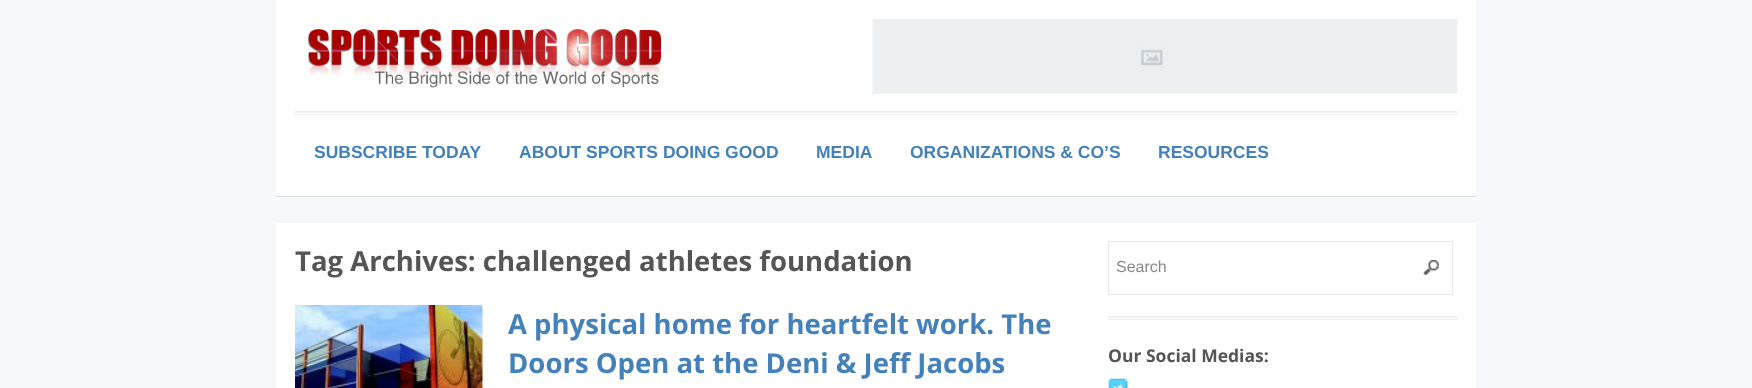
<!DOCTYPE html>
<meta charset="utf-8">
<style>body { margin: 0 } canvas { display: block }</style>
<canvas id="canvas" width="1752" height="388"></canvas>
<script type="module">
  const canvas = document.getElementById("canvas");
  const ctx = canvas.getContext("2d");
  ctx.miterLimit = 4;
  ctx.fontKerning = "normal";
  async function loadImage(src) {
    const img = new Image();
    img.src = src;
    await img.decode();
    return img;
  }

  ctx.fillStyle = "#f7f8f9";
  ctx.fillRect(0, 0, 1752, 388);
  ctx.fillStyle = "#ffffff";
  ctx.fillRect(276, 0, 1200, 198);
  ctx.fillStyle = "#dddddd";
  ctx.fillRect(276, 196, 1200, 1);
  ctx.drawImage(await loadImage("img1.png"), 295, 111, 1163, 4);
  ctx.drawImage(await loadImage("img2.png"), 307, 29, 354, 59);
  ctx.drawImage(await loadImage("img3.png"), 872, 19, 586, 75);
  ctx.font = "bold 17.5px Liberation Sans";
  ctx.fillStyle = "#4581b9";
  ctx.fillText("SUBSCRIBE TODAY", 314, 158);
  ctx.fillText("ABOUT SPORTS DOING GOOD", 519, 158);
  ctx.fillText("MEDIA", 816, 158);
  ctx.fillText("ORGANIZATIONS & CO’S", 910, 158);
  ctx.fillText("RESOURCES", 1158, 158);
  ctx.fillStyle = "#ffffff";
  ctx.fillRect(276, 223, 1200, 165);
  ctx.font = "bold 27.5px Open Sans";
  ctx.fillStyle = "#555555";
  ctx.fillText("Tag Archives: challenged athletes foundation", 295, 271);
  ctx.drawImage(await loadImage("img4.png"), 295, 305, 188, 83);
  ctx.fillStyle = "#4581b9";
  ctx.fillText("A physical home for heartfelt work. The", 508, 334);
  ctx.fillText("Doors Open at the Deni & Jeff Jacobs", 508, 373);
  ctx.drawImage(await loadImage("img5.png"), 1107, 316, 351, 4);
  ctx.drawImage(await loadImage("img6.png"), 1423, 260, 16, 15);
  ctx.strokeStyle = "#e7e7e7";
  ctx.strokeRect(1108.5, 241.5, 344, 53);
  ctx.font = "16px Liberation Sans";
  ctx.fillStyle = "#888888";
  ctx.fillText("Search", 1116, 272);
  ctx.font = "bold 17.5px Open Sans";
  ctx.fillStyle = "#555555";
  ctx.fillText("Our Social Medias:", 1108, 362);
  ctx.drawImage(await loadImage("img7.png"), 1108, 378, 20, 10);
</script>
